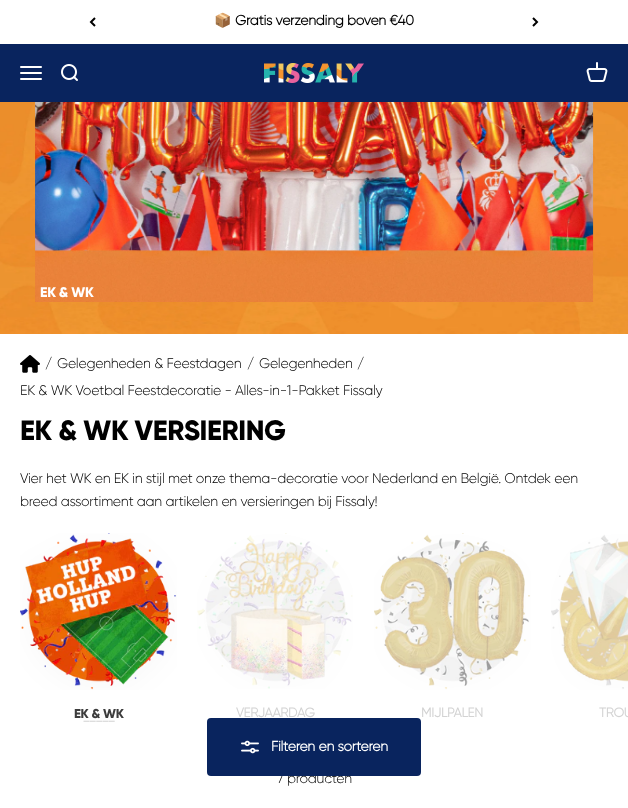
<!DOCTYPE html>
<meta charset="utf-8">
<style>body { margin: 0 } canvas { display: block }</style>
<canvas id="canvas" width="628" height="808"></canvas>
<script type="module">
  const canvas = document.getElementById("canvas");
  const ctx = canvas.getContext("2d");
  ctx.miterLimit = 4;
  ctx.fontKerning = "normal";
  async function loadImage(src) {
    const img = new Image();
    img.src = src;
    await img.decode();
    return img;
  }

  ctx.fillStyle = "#ffffff";
  ctx.fillRect(0, 0, 628, 808);
  ctx.beginPath();
  ctx.moveTo(95, 18);
  ctx.lineTo(91, 22);
  ctx.lineTo(95, 26);
  ctx.strokeStyle = "#000000";
  ctx.lineWidth = 2;
  ctx.stroke();
  ctx.letterSpacing = "-0.28px";
  ctx.font = "bold 14px Noto Color Emoji";
  ctx.fillStyle = "#000000";
  ctx.fillText("📦", 214, 25);
  ctx.font = "bold 14px Gilroy";
  ctx.fillText("Gratis verzending boven €40", 235, 25);
  ctx.beginPath();
  ctx.moveTo(533, 26);
  ctx.lineTo(537, 22);
  ctx.lineTo(533, 18);
  ctx.stroke();
  ctx.fillStyle = "#09245e";
  ctx.fillRect(0, 44, 628, 58);
  ctx.drawImage(await loadImage("img1.png"), 20, 66, 22, 14);
  ctx.drawImage(await loadImage("img2.png"), 61, 64, 17, 17);
  ctx.drawImage(await loadImage("img3.png"), 264, 63, 100, 20);
  ctx.drawImage(await loadImage("img4.png"), 586, 62, 22, 20);
  ctx.drawImage(await loadImage("img5.png"), 0, 102, 628, 232);
  ctx.drawImage(await loadImage("img6.png"), 35, 102, 559, 200);
  ctx.font = "800 14px Gilroy";
  ctx.fillStyle = "#ffffff";
  ctx.fillText("EK & WK", 40, 297);
  ctx.drawImage(await loadImage("img7.png"), 20, 355, 20, 18);
  ctx.font = "300 14px Gilroy";
  ctx.fillStyle = "#000000";
  ctx.fillText("/", 45, 368);
  ctx.fillText("Gelegenheden & Feestdagen", 57, 368);
  ctx.fillText("/", 247, 368);
  ctx.fillText("Gelegenheden", 259, 368);
  ctx.fillText("/", 357, 368);
  ctx.fillText("EK & WK Voetbal Feestdecoratie - Alles-in-1-Pakket Fissaly", 20, 395);
  ctx.letterSpacing = "-0.4px";
  ctx.font = "800 28px Gilroy";
  ctx.fillText("EK & WK VERSIERING", 20, 440);
  ctx.letterSpacing = "-0.28px";
  ctx.font = "300 14px Gilroy";
  ctx.fillText("Vier het WK en EK in stijl met onze thema-decoratie voor Nederland en België. Ontdek een", 20, 483);
  ctx.fillText("breed assortiment aan artikelen en versieringen bij Fissaly!", 20, 506);
  ctx.drawImage(await loadImage("img8.png"), 20, 533, 157, 157);
  ctx.font = "800 13px Gilroy";
  ctx.fillStyle = "#3d3d3d";
  ctx.fillText("EK & WK", 74, 718);
  ctx.letterSpacing = "-0.25px";
  ctx.font = "bold 13px Gilroy";
  ctx.fillStyle = "#d3d3d3";
  ctx.fillText("_____", 83, 720);
  ctx.drawImage(await loadImage("img9.png"), 197, 533, 156, 156);
  ctx.fillText("VERJAARDAG", 236, 717);
  ctx.drawImage(await loadImage("img10.png"), 374, 533, 157, 157);
  ctx.fillText("MIJLPALEN", 421, 717);
  ctx.drawImage(await loadImage("img11.png"), 551, 534, 77, 156);
  ctx.fillText("TROU", 599, 717);
  ctx.letterSpacing = "-0.28px";
  ctx.font = "300 14px Gilroy";
  ctx.fillStyle = "#000000";
  ctx.fillText("7 producten", 277, 783);
  ctx.fillStyle = "#09245e";
  ctx.beginPath();
  ctx.roundRect(207, 718, 214, 58, 4);
  ctx.fill();
  ctx.drawImage(await loadImage("img12.png"), 241, 740, 18, 14);
  ctx.font = "bold 14px Gilroy";
  ctx.fillStyle = "#ffffff";
  ctx.fillText("Filteren en sorteren", 271, 751);
</script>
